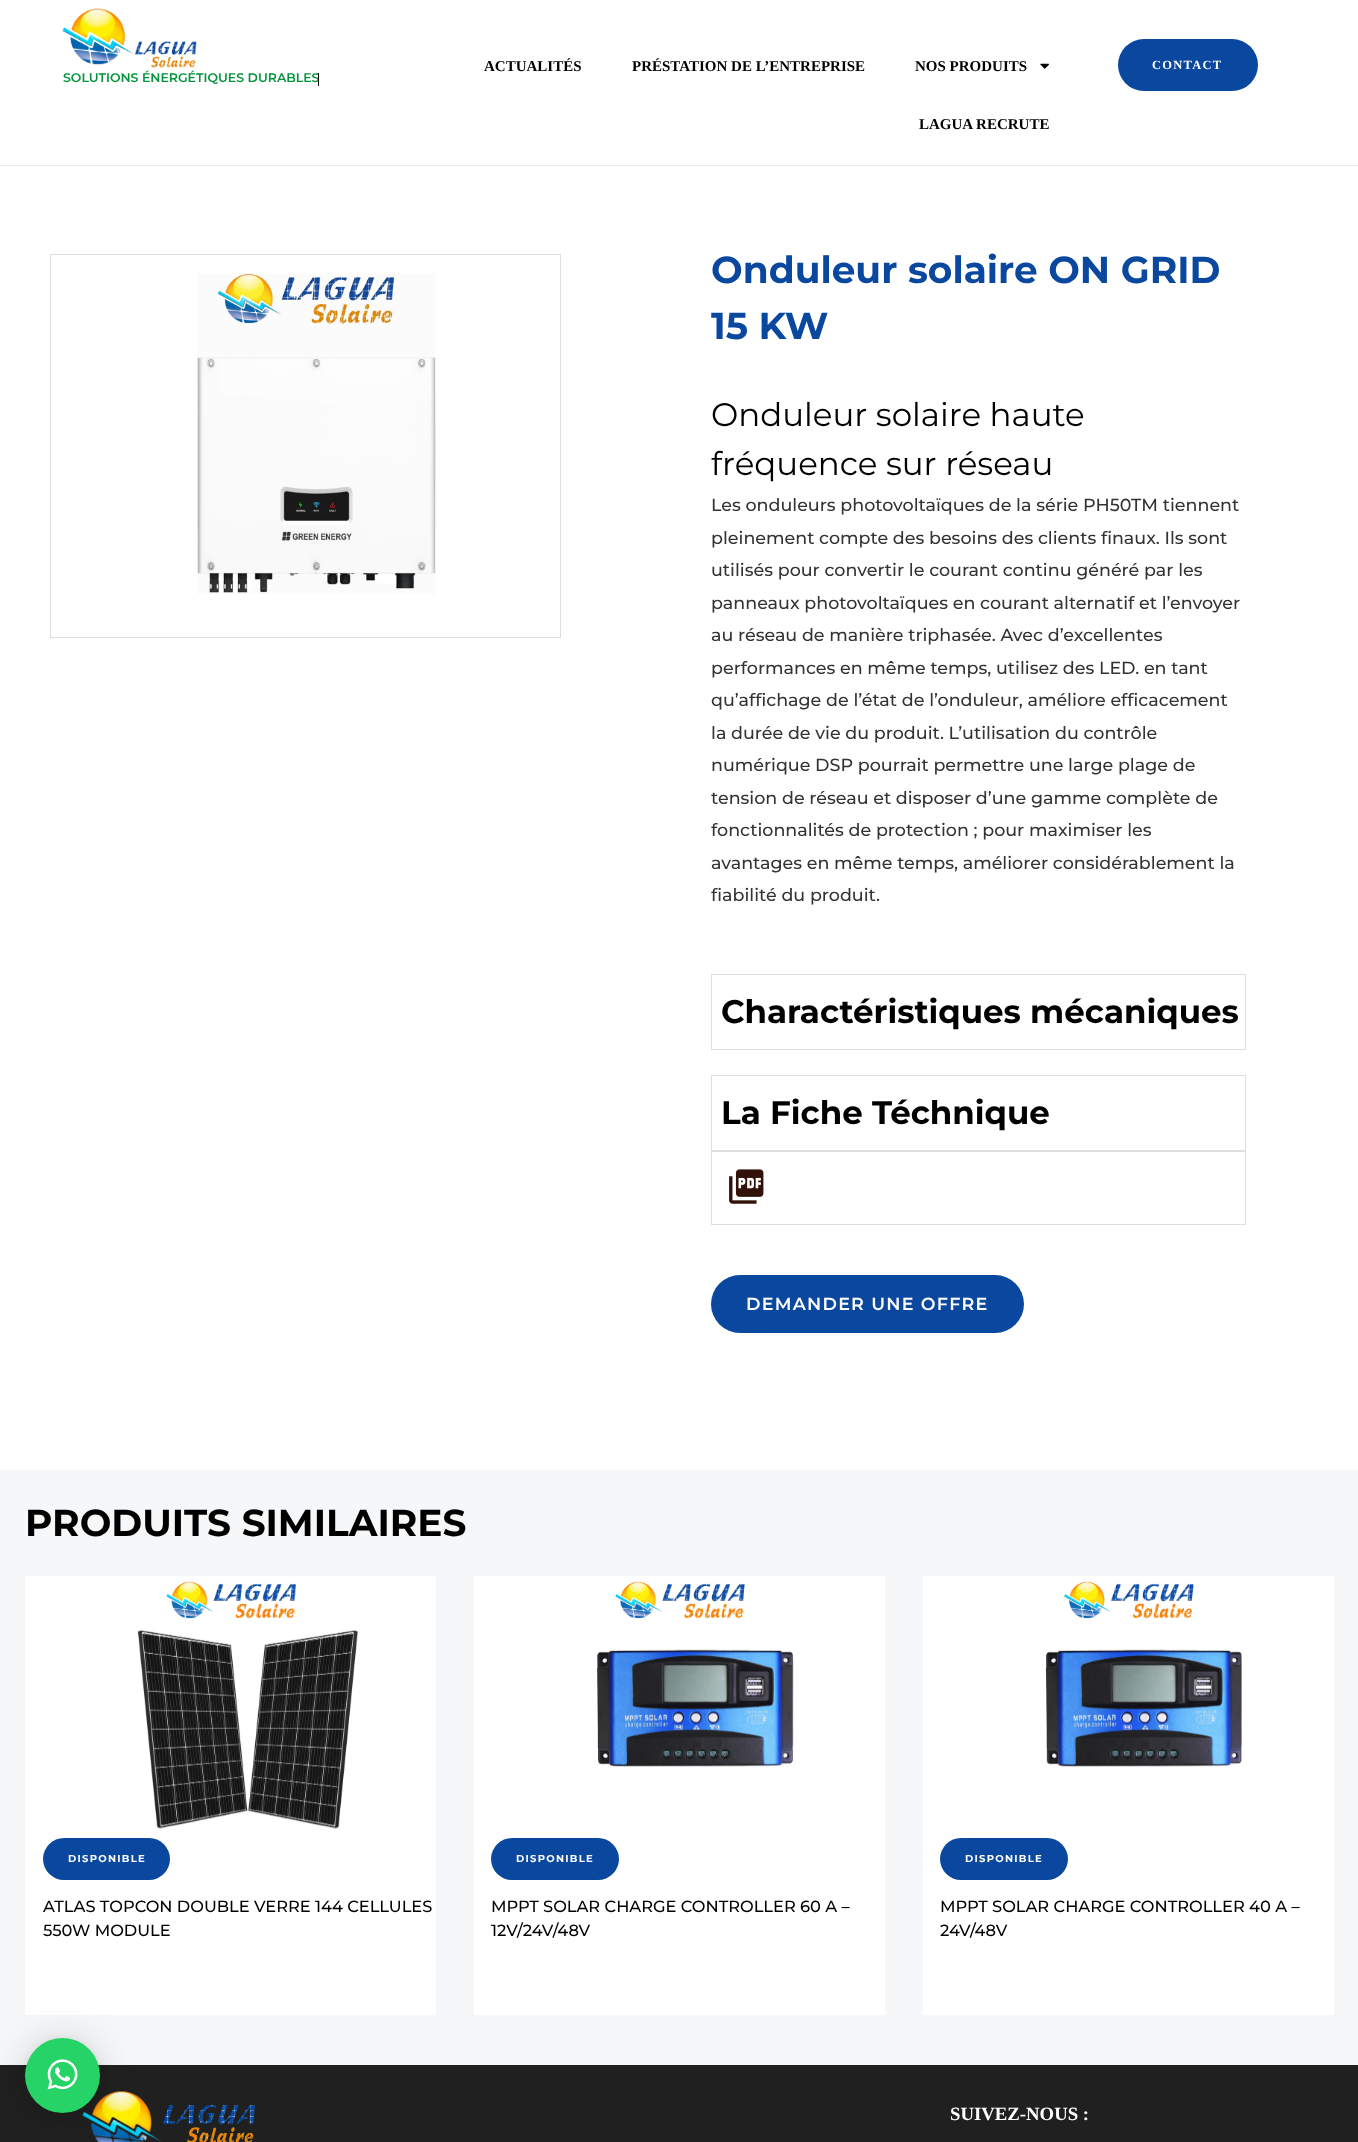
<!DOCTYPE html>
<meta charset="utf-8">
<style>body { margin: 0 } canvas { display: block }</style>
<canvas id="canvas" width="1358" height="2142"></canvas>
<script type="module">
  const canvas = document.getElementById("canvas");
  const ctx = canvas.getContext("2d");
  ctx.miterLimit = 4;
  ctx.fontKerning = "normal";
  async function loadImage(src) {
    const img = new Image();
    img.src = src;
    await img.decode();
    return img;
  }

  ctx.fillStyle = "#ffffff";
  ctx.fillRect(0, 0, 1358, 2142);
  ctx.font = "bold 15px Liberation Serif";
  ctx.fillStyle = "#000000";
  ctx.fillText("ACTUALITÉS", 484, 71);
  ctx.fillText("PRÉSTATION DE L’ENTREPRISE", 632, 71);
  ctx.fillText("NOS PRODUITS", 915, 71);
  ctx.drawImage(await loadImage("img1.png"), 1040, 63, 9, 6);
  ctx.fillText("LAGUA RECRUTE", 919, 129);
  ctx.fillStyle = "#09489e";
  ctx.beginPath();
  ctx.roundRect(1118, 39, 140, 52, 26);
  ctx.fill();
  ctx.letterSpacing = "1.25px";
  ctx.font = "bold 12.5px Liberation Serif";
  ctx.fillStyle = "#ffffff";
  ctx.fillText("CONTACT", 1152, 69);
  ctx.drawImage(await loadImage("img2.png"), 62, 8, 72, 57);
  ctx.drawImage(await loadImage("img3.png"), 135, 41, 62, 27);
  ctx.letterSpacing = "0px";
  ctx.font = "600 12.5px Montserrat";
  ctx.fillStyle = "#04943c";
  ctx.fillText("SOLUTIONS ÉNERGÉTIQUES DURABLES", 63, 82);
  ctx.fillStyle = "#0d0d0d";
  ctx.fillRect(318, 73, 1, 13);
  ctx.fillStyle = "#e9e9e9";
  ctx.fillRect(0, 165, 1358, 1);
  ctx.strokeStyle = "#e0dfdf";
  ctx.strokeRect(50.5, 254.5, 510, 383);
  ctx.drawImage(await loadImage("img4.png"), 197, 273, 239, 321);
  ctx.font = "bold 37.5px Montserrat";
  ctx.fillStyle = "#09489e";
  ctx.fillText("Onduleur solaire ON GRID", 711, 283);
  ctx.fillText("15 KW", 711, 339);
  ctx.font = "32.5px Montserrat";
  ctx.fillStyle = "#000000";
  ctx.fillText("Onduleur solaire haute", 711, 426);
  ctx.fillText("fréquence sur réseau", 711, 475);
  ctx.font = "500 17.5px Montserrat";
  ctx.fillStyle = "#333333";
  ctx.fillText("Les onduleurs photovoltaïques de la série PH50TM tiennent", 711, 511);
  ctx.fillText("pleinement compte des besoins des clients finaux. Ils sont", 711, 544);
  ctx.fillText("utilisés pour convertir le courant continu généré par les", 711, 576);
  ctx.fillText("panneaux photovoltaïques en courant alternatif et l’envoyer", 711, 609);
  ctx.fillText("au réseau de manière triphasée. Avec d’excellentes", 711, 641);
  ctx.fillText("performances en même temps, utilisez des LED. en tant", 711, 674);
  ctx.fillText("qu’affichage de l’état de l’onduleur, améliore efficacement", 711, 706);
  ctx.fillText("la durée de vie du produit. L’utilisation du contrôle", 711, 739);
  ctx.fillText("numérique DSP pourrait permettre une large plage de", 711, 771);
  ctx.fillText("tension de réseau et disposer d’une gamme complète de", 711, 804);
  ctx.fillText("fonctionnalités de protection ; pour maximiser les", 711, 836);
  ctx.fillText("avantages en même temps, améliorer considérablement la", 711, 869);
  ctx.fillText("fiabilité du produit.", 711, 901);
  ctx.strokeRect(711.5, 974.5, 534, 75);
  ctx.font = "bold 32.5px Montserrat";
  ctx.fillStyle = "#000000";
  ctx.fillText("Charactéristiques mécaniques", 721, 1023);
  ctx.strokeRect(711.5, 1075.5, 534, 75);
  ctx.fillText("La Fiche Téchnique", 721, 1124);
  ctx.strokeRect(711.5, 1151.5, 534, 73);
  ctx.drawImage(await loadImage("img5.png"), 729, 1169, 35, 35);
  ctx.fillStyle = "#09489e";
  ctx.beginPath();
  ctx.roundRect(711, 1275, 313, 58, 29);
  ctx.fill();
  ctx.letterSpacing = "1.25px";
  ctx.font = "600 17.5px Montserrat";
  ctx.fillStyle = "#ffffff";
  ctx.fillText("DEMANDER UNE OFFRE", 746, 1310);
  ctx.fillStyle = "#f5f7f9";
  ctx.fillRect(0, 1470, 1358, 595);
  ctx.letterSpacing = "0px";
  ctx.font = "bold 37.5px Montserrat";
  ctx.fillStyle = "#000000";
  ctx.fillText("PRODUITS SIMILAIRES", 25, 1536);
  ctx.fillStyle = "#ffffff";
  ctx.fillRect(25, 1576, 411, 439);
  ctx.drawImage(await loadImage("img6.png"), 137, 1581, 221, 248);
  ctx.fillStyle = "#09489e";
  ctx.beginPath();
  ctx.roundRect(43, 1838, 127, 42, 21);
  ctx.fill();
  ctx.letterSpacing = "1.25px";
  ctx.font = "bold 10px Montserrat";
  ctx.fillStyle = "#ffffff";
  ctx.fillText("DISPONIBLE", 68, 1862);
  ctx.letterSpacing = "0px";
  ctx.font = "500 16.25px Montserrat";
  ctx.fillStyle = "#000000";
  ctx.fillText("ATLAS TOPCON DOUBLE VERRE 144 CELLULES", 43, 1912);
  ctx.fillText("550W MODULE", 43, 1936);
  ctx.fillStyle = "#ffffff";
  ctx.fillRect(474, 1576, 411, 439);
  ctx.drawImage(await loadImage("img7.png"), 597, 1581, 197, 186);
  ctx.fillStyle = "#09489e";
  ctx.beginPath();
  ctx.roundRect(491, 1838, 128, 42, 21);
  ctx.fill();
  ctx.letterSpacing = "1.25px";
  ctx.font = "bold 10px Montserrat";
  ctx.fillStyle = "#ffffff";
  ctx.fillText("DISPONIBLE", 516, 1862);
  ctx.letterSpacing = "0px";
  ctx.font = "500 16.25px Montserrat";
  ctx.fillStyle = "#000000";
  ctx.fillText("MPPT SOLAR CHARGE CONTROLLER 60 A –", 491, 1912);
  ctx.fillText("12V/24V/48V", 491, 1936);
  ctx.fillStyle = "#ffffff";
  ctx.fillRect(923, 1576, 411, 439);
  ctx.drawImage(await loadImage("img8.png"), 1045, 1581, 197, 186);
  ctx.fillStyle = "#09489e";
  ctx.beginPath();
  ctx.roundRect(940, 1838, 128, 42, 21);
  ctx.fill();
  ctx.letterSpacing = "1.25px";
  ctx.font = "bold 10px Montserrat";
  ctx.fillStyle = "#ffffff";
  ctx.fillText("DISPONIBLE", 965, 1862);
  ctx.letterSpacing = "0px";
  ctx.font = "500 16.25px Montserrat";
  ctx.fillStyle = "#000000";
  ctx.fillText("MPPT SOLAR CHARGE CONTROLLER 40 A –", 940, 1912);
  ctx.fillText("24V/48V", 940, 1936);
  ctx.fillStyle = "#202020";
  ctx.fillRect(0, 2065, 1358, 77);
  ctx.drawImage(await loadImage("img9.png"), 82, 2091, 80, 51);
  ctx.drawImage(await loadImage("img10.png"), 162, 2105, 93, 37);
  ctx.font = "bold 18.75px Liberation Serif";
  ctx.fillStyle = "#ffffff";
  ctx.fillText("SUIVEZ-NOUS :", 950, 2120);
  ctx.fillStyle = "rgba(0, 0, 0, 0.16)";
  ctx.filter = "blur(20px)";
  ctx.beginPath();
  ctx.roundRect(25, 2040, 75, 75, 37.5);
  ctx.fill();
  ctx.filter = "none";
  ctx.fillStyle = "rgba(0, 0, 0, 0.06)";
  ctx.filter = "blur(4px)";
  ctx.beginPath();
  ctx.roundRect(25, 2039, 75, 75, 37.5);
  ctx.fill();
  ctx.filter = "none";
  ctx.fillStyle = "#25d366";
  ctx.beginPath();
  ctx.arc(62.5, 2075.5, 37.5, 0, Math.PI * 2);
  ctx.fill();
  ctx.drawImage(await loadImage("img11.png"), 47, 2059, 31, 31);
</script>
